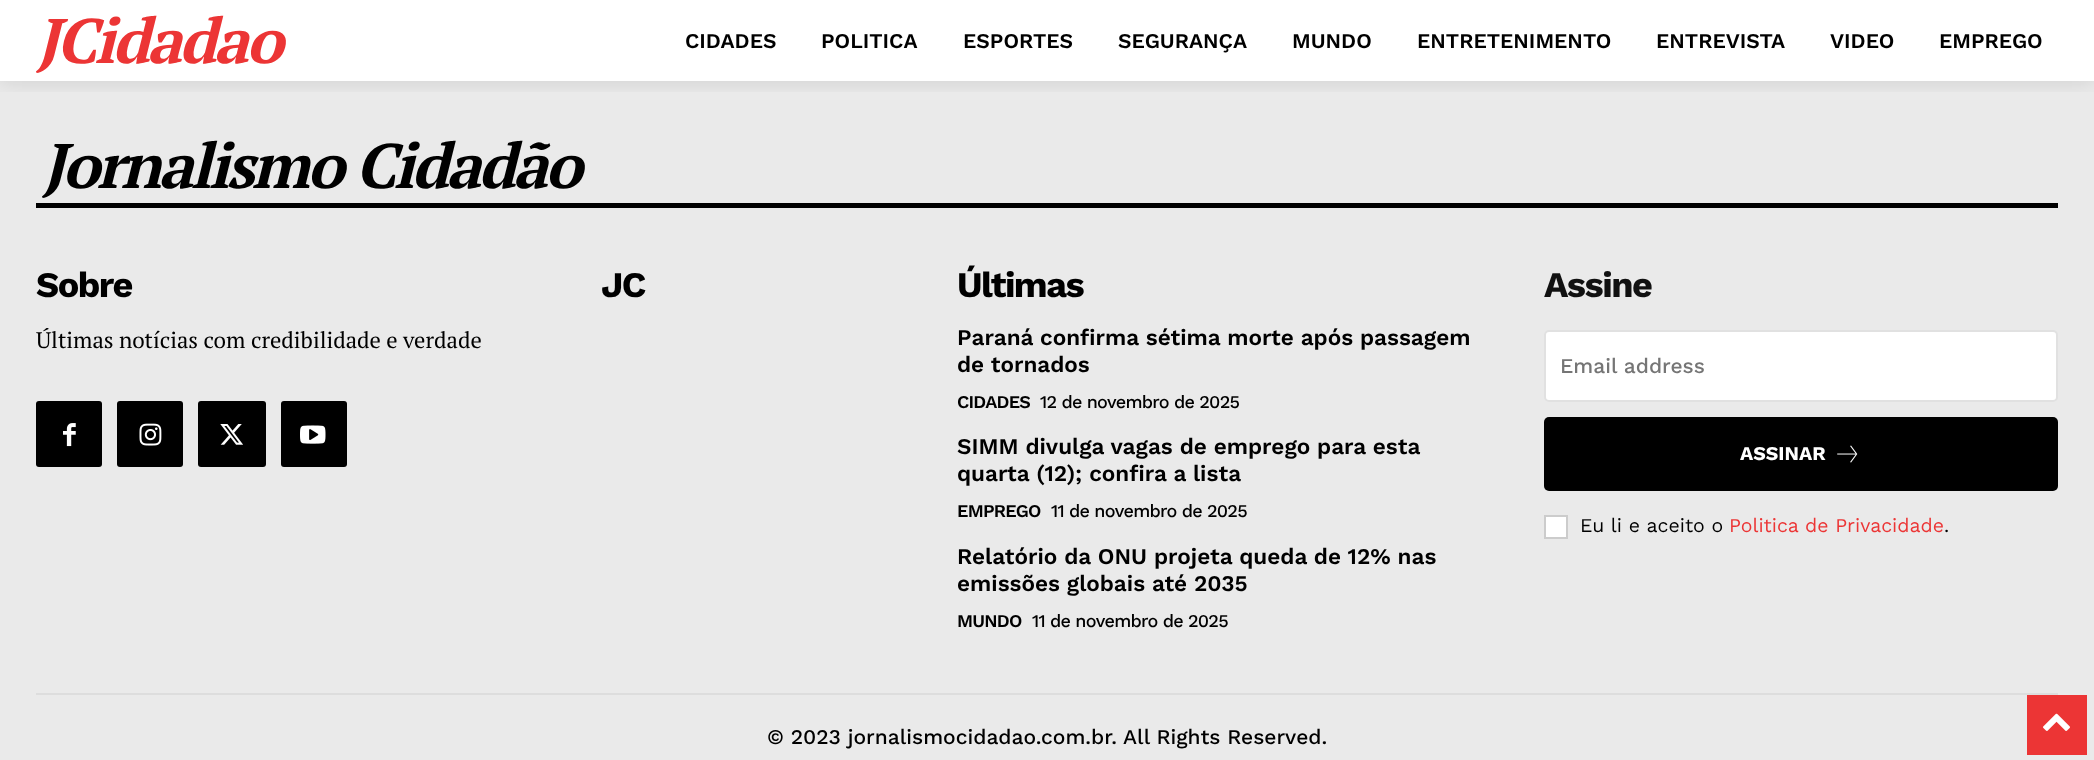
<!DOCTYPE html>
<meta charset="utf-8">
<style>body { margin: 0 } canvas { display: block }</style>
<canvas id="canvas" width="2094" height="760"></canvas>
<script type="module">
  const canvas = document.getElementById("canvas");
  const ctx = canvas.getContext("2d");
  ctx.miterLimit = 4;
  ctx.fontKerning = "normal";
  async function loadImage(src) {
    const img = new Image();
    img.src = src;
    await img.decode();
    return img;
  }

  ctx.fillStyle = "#eaeaea";
  ctx.fillRect(0, 0, 2094, 760);
  ctx.fillStyle = "#ffffff";
  ctx.fillRect(0, 0, 2094, 81);
  ctx.save();
  ctx.beginPath();
  ctx.rect(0, 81, 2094, 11);
  ctx.clip();
  ctx.fillStyle = "rgba(0, 0, 0, 0.12)";
  ctx.filter = "blur(11px)";
  ctx.beginPath();
  ctx.rect(0, 0, 2094, 81);
  ctx.fill();
  ctx.filter = "none";
  ctx.restore();
  ctx.letterSpacing = "-3px";
  ctx.font = "italic bold 63px PT Serif";
  ctx.fillStyle = "#ec3535";
  ctx.fillText("JCidadao", 36, 63);
  ctx.letterSpacing = "0px";
  ctx.font = "600 21px Work Sans";
  ctx.fillStyle = "#000000";
  ctx.fillText("CIDADES", 685, 48);
  ctx.fillText("POLITICA", 821, 48);
  ctx.fillText("ESPORTES", 963, 48);
  ctx.fillText("SEGURANÇA", 1118, 48);
  ctx.fillText("MUNDO", 1292, 48);
  ctx.fillText("ENTRETENIMENTO", 1417, 48);
  ctx.fillText("ENTREVISTA", 1656, 48);
  ctx.fillText("VIDEO", 1830, 48);
  ctx.fillText("EMPREGO", 1939, 48);
  ctx.fillRect(36, 203, 2022, 5);
  ctx.letterSpacing = "-3px";
  ctx.font = "italic bold 63px PT Serif";
  ctx.fillText("Jornalismo Cidadão", 42, 188);
  ctx.letterSpacing = "-1.5px";
  ctx.font = "bold 36px Work Sans";
  ctx.fillText("Sobre", 36, 297);
  ctx.letterSpacing = "0px";
  ctx.font = "22.5px PT Serif";
  ctx.fillText("Últimas notícias com credibilidade e verdade", 36, 348);
  ctx.beginPath();
  ctx.roundRect(36, 401, 66, 66, 3);
  ctx.fill();
  ctx.drawImage(await loadImage("img1.png"), 63, 423, 13, 24);
  ctx.beginPath();
  ctx.roundRect(117, 401, 66, 66, 3);
  ctx.fill();
  ctx.drawImage(await loadImage("img2.png"), 139, 423, 23, 23);
  ctx.beginPath();
  ctx.roundRect(198, 401, 68, 66, 3);
  ctx.fill();
  ctx.drawImage(await loadImage("img3.png"), 220, 424, 23, 21);
  ctx.beginPath();
  ctx.roundRect(281, 401, 66, 66, 3);
  ctx.fill();
  ctx.drawImage(await loadImage("img4.png"), 300, 425, 26, 19);
  ctx.letterSpacing = "-1.5px";
  ctx.font = "bold 36px Work Sans";
  ctx.fillText("JC", 601, 297);
  ctx.fillText("Últimas", 957, 297);
  ctx.letterSpacing = "0px";
  ctx.font = "600 22.5px Work Sans";
  ctx.fillText("Paraná confirma sétima morte após passagem", 957, 345);
  ctx.fillText("de tornados", 957, 372);
  ctx.letterSpacing = "-0.75px";
  ctx.font = "600 18px Work Sans";
  ctx.fillText("CIDADES", 957, 408);
  ctx.font = "500 18px Work Sans";
  ctx.fillText("12 de novembro de 2025", 1040, 408);
  ctx.letterSpacing = "0px";
  ctx.font = "600 22.5px Work Sans";
  ctx.fillText("SIMM divulga vagas de emprego para esta", 957, 454);
  ctx.fillText("quarta (12); confira a lista", 957, 481);
  ctx.letterSpacing = "-0.75px";
  ctx.font = "600 18px Work Sans";
  ctx.fillText("EMPREGO", 957, 517);
  ctx.font = "500 18px Work Sans";
  ctx.fillText("11 de novembro de 2025", 1051, 517);
  ctx.letterSpacing = "0px";
  ctx.font = "600 22.5px Work Sans";
  ctx.fillText("Relatório da ONU projeta queda de 12% nas", 957, 564);
  ctx.fillText("emissões globais até 2035", 957, 591);
  ctx.letterSpacing = "-0.75px";
  ctx.font = "600 18px Work Sans";
  ctx.fillText("MUNDO", 957, 627);
  ctx.font = "500 18px Work Sans";
  ctx.fillText("11 de novembro de 2025", 1032, 627);
  ctx.letterSpacing = "-1.5px";
  ctx.font = "bold 36px Work Sans";
  ctx.fillStyle = "#111111";
  ctx.fillText("Assine", 1544, 297);
  ctx.fillStyle = "#ffffff";
  ctx.beginPath();
  ctx.roundRect(1545, 331, 512, 70, 4);
  ctx.fill();
  ctx.strokeStyle = "#e1e1e1";
  ctx.lineWidth = 2;
  ctx.stroke();
  ctx.letterSpacing = "0px";
  ctx.font = "500 21px Work Sans";
  ctx.fillStyle = "#757575";
  ctx.fillText("Email address", 1560, 373);
  ctx.fillStyle = "#000000";
  ctx.beginPath();
  ctx.roundRect(1544, 417, 514, 74, 5);
  ctx.fill();
  ctx.font = "bold 19.5px Work Sans";
  ctx.fillStyle = "#ffffff";
  ctx.fillText("ASSINAR", 1740, 460);
  ctx.drawImage(await loadImage("img5.png"), 1837, 445, 21, 18);
  ctx.beginPath();
  ctx.rect(1545, 516, 22, 22);
  ctx.fill();
  ctx.strokeStyle = "#cccccc";
  ctx.stroke();
  ctx.font = "19.5px Work Sans";
  ctx.fillStyle = "#000000";
  ctx.fillText("Eu li e aceito o", 1580, 532);
  ctx.fillStyle = "#ec3535";
  ctx.fillText("Politica de Privacidade", 1729, 532);
  ctx.fillStyle = "#000000";
  ctx.fillText(".", 1944, 532);
  ctx.fillStyle = "#dddddd";
  ctx.fillRect(36, 693, 2022, 2);
  ctx.font = "500 21px Work Sans";
  ctx.fillStyle = "#000000";
  ctx.fillText("© 2023 jornalismocidadao.com.br. All Rights Reserved.", 767, 744);
  ctx.fillStyle = "#ec3535";
  ctx.fillRect(2027, 695, 60, 60);
  ctx.drawImage(await loadImage("img6.png"), 2043, 713, 27, 18);
</script>
